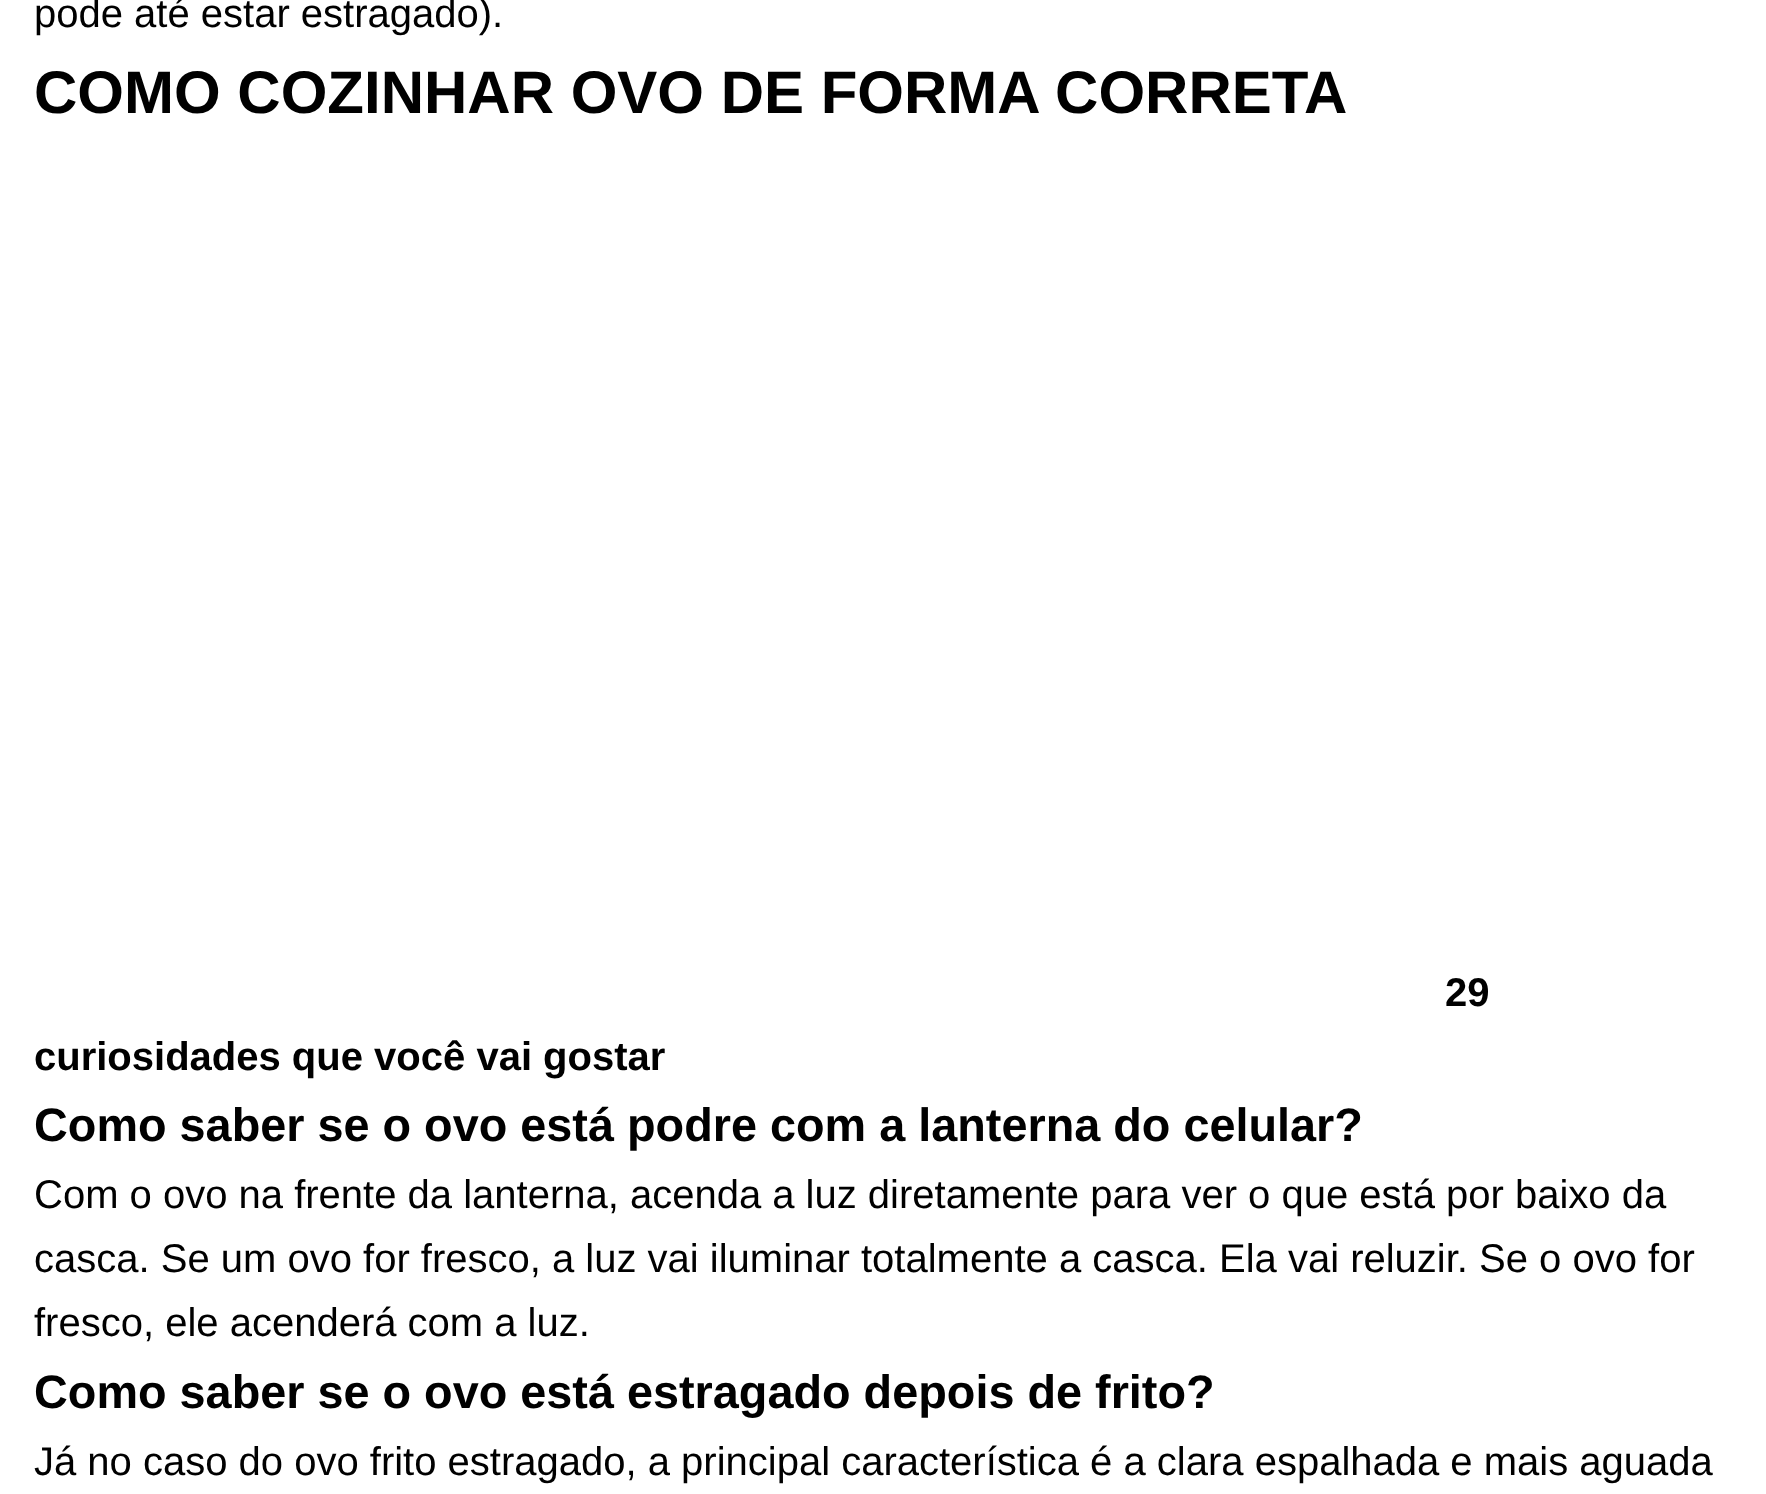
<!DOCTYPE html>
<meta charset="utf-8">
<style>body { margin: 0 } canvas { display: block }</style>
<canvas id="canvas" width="1766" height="1494"></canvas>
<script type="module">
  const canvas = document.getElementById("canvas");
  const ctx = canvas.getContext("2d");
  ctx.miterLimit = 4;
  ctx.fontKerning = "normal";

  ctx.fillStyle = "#ffffff";
  ctx.fillRect(0, 0, 1766, 1494);
  ctx.font = "40px Liberation Sans";
  ctx.fillStyle = "#000000";
  ctx.fillText("pode até estar estragado).", 34, 27);
  ctx.font = "bold 60px Liberation Sans";
  ctx.fillText("COMO COZINHAR OVO DE FORMA CORRETA", 34, 113);
  ctx.font = "bold 40px Liberation Sans";
  ctx.fillText("29", 1445, 1006);
  ctx.fillText("curiosidades que você vai gostar", 34, 1070);
  ctx.font = "bold 46.8px Liberation Sans";
  ctx.fillText("Como saber se o ovo está podre com a lanterna do celular?", 34, 1141);
  ctx.font = "40px Liberation Sans";
  ctx.fillText("Com o ovo na frente da lanterna, acenda a luz diretamente para ver o que está por baixo da", 34, 1208);
  ctx.fillText("casca. Se um ovo for fresco, a luz vai iluminar totalmente a casca. Ela vai reluzir. Se o ovo for", 34, 1272);
  ctx.fillText("fresco, ele acenderá com a luz.", 34, 1336);
  ctx.font = "bold 46.8px Liberation Sans";
  ctx.fillText("Como saber se o ovo está estragado depois de frito?", 34, 1408);
  ctx.font = "40px Liberation Sans";
  ctx.fillText("Já no caso do ovo frito estragado, a principal característica é a clara espalhada e mais aguada", 34, 1475);
</script>
